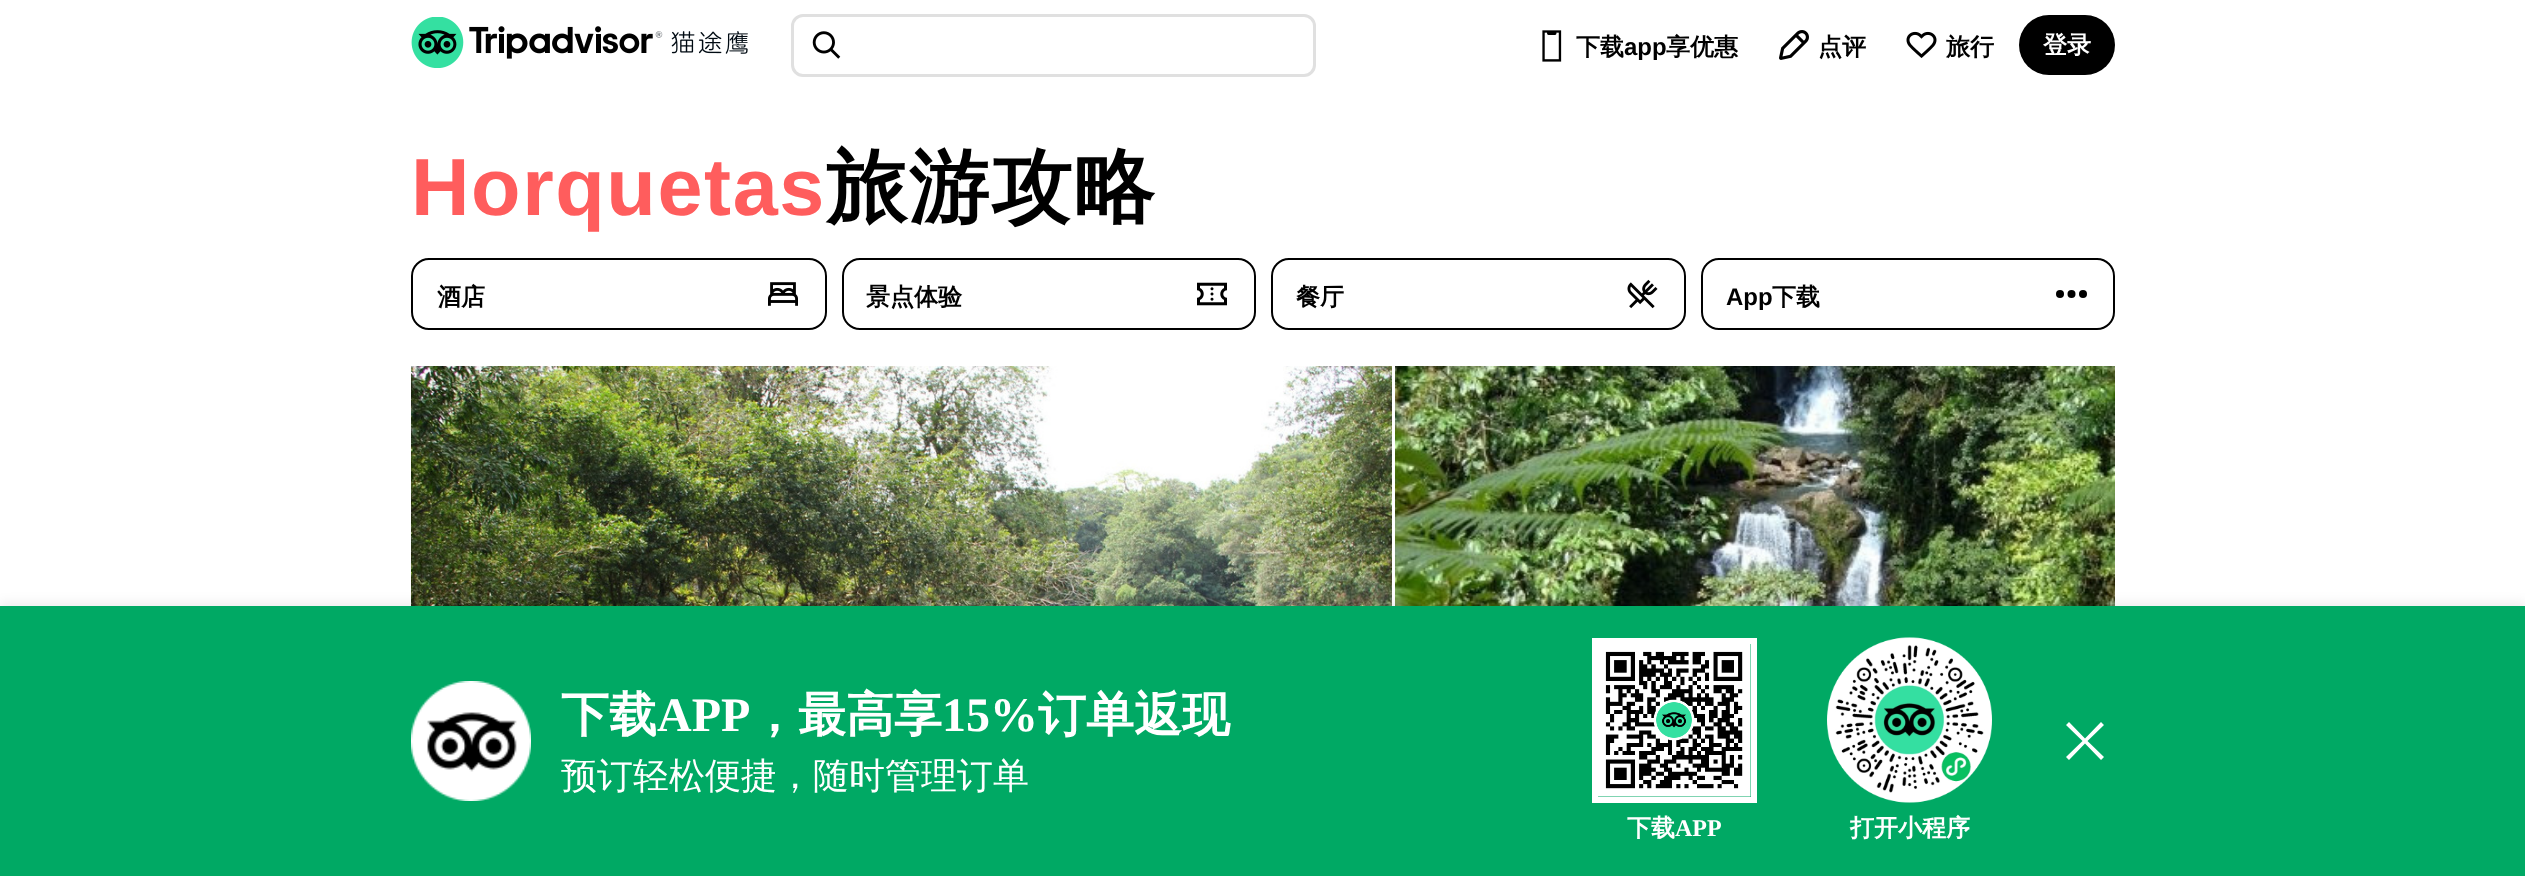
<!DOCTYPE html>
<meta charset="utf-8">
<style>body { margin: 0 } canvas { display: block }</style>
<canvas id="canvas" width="2525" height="876"></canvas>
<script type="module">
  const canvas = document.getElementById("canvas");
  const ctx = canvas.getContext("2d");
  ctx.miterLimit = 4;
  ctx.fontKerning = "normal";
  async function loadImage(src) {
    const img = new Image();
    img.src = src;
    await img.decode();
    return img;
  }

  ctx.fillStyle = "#ffffff";
  ctx.fillRect(0, 0, 2525, 876);
  ctx.drawImage(await loadImage("img1.png"), 411, 17, 337, 51);
  ctx.beginPath();
  ctx.roundRect(792.5, 15.5, 522, 60, 10.5);
  ctx.strokeStyle = "#e0e0e0";
  ctx.lineWidth = 3;
  ctx.stroke();
  ctx.drawImage(await loadImage("img2.png"), 812, 31, 29, 28);
  ctx.drawImage(await loadImage("img3.png"), 1542, 30, 20, 32);
  ctx.font = "bold 24px WenQuanYi Zen Hei";
  ctx.fillStyle = "#000000";
  ctx.fillText("下载", 1576, 55);
  ctx.font = "bold 24px Liberation Sans";
  ctx.fillText("app", 1624, 55);
  ctx.font = "bold 24px WenQuanYi Zen Hei";
  ctx.fillText("享优惠", 1666, 55);
  ctx.drawImage(await loadImage("img4.png"), 1779, 30, 30, 30);
  ctx.fillText("点评", 1818, 55);
  ctx.drawImage(await loadImage("img5.png"), 1906, 31, 31, 27);
  ctx.fillText("旅行", 1946, 55);
  ctx.beginPath();
  ctx.roundRect(2019, 15, 96, 60, 30);
  ctx.fill();
  ctx.fillStyle = "#ffffff";
  ctx.fillText("登录", 2043, 53);
  ctx.letterSpacing = "1.6px";
  ctx.font = "bold 81px Liberation Sans";
  ctx.fillStyle = "#ff5d5d";
  ctx.fillText("Horquetas", 411, 215);
  ctx.font = "bold 81px WenQuanYi Zen Hei";
  ctx.fillStyle = "#000000";
  ctx.fillText("旅游攻略", 826, 215);
  ctx.beginPath();
  ctx.roundRect(412, 259, 414, 70, 17);
  ctx.strokeStyle = "#000000";
  ctx.lineWidth = 2;
  ctx.stroke();
  ctx.letterSpacing = "0px";
  ctx.font = "bold 24px WenQuanYi Zen Hei";
  ctx.fillText("酒店", 437, 305);
  ctx.drawImage(await loadImage("img6.png"), 768, 282, 30, 24);
  ctx.beginPath();
  ctx.roundRect(843, 259, 412, 70, 17);
  ctx.stroke();
  ctx.fillText("景点体验", 866, 305);
  ctx.drawImage(await loadImage("img7.png"), 1197, 282, 30, 24);
  ctx.beginPath();
  ctx.roundRect(1272, 259, 413, 70, 17);
  ctx.stroke();
  ctx.fillText("餐厅", 1296, 305);
  ctx.drawImage(await loadImage("img8.png"), 1627, 279, 31, 30);
  ctx.beginPath();
  ctx.roundRect(1702, 259, 412, 70, 17);
  ctx.stroke();
  ctx.font = "bold 24px Liberation Sans";
  ctx.fillText("App", 1726, 305);
  ctx.font = "bold 24px WenQuanYi Zen Hei";
  ctx.fillText("下载", 1772, 305);
  ctx.beginPath();
  ctx.arc(2060, 294, 4, 0, Math.PI * 2);
  ctx.fill();
  ctx.beginPath();
  ctx.arc(2083, 294, 4, 0, Math.PI * 2);
  ctx.fill();
  ctx.beginPath();
  ctx.arc(2071.5, 294, 4, 0, Math.PI * 2);
  ctx.fill();
  ctx.drawImage(await loadImage("img9.png"), 411, 366, 981, 240);
  ctx.drawImage(await loadImage("img10.png"), 1395, 366, 720, 240);
  ctx.fillStyle = "rgba(0, 0, 0, 0.08)";
  ctx.filter = "blur(6px)";
  ctx.beginPath();
  ctx.rect(0, 603, 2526, 270);
  ctx.fill();
  ctx.filter = "none";
  ctx.fillStyle = "#00a964";
  ctx.fillRect(0, 606, 2525, 270);
  ctx.drawImage(await loadImage("img11.png"), 411, 681, 120, 120);
  ctx.font = "bold 48px WenQuanYi Zen Hei";
  ctx.fillStyle = "#ffffff";
  ctx.fillText("下载", 561, 731);
  ctx.font = "bold 48px Liberation Serif";
  ctx.fillText("APP", 657, 731);
  ctx.font = "bold 48px WenQuanYi Zen Hei";
  ctx.fillText("，最高享", 750, 731);
  ctx.font = "bold 48px Liberation Serif";
  ctx.fillText("15%", 942, 731);
  ctx.font = "bold 48px WenQuanYi Zen Hei";
  ctx.fillText("订单返现", 1038, 731);
  ctx.font = "500 36px WenQuanYi Zen Hei";
  ctx.fillText("预订轻松便捷，随时管理订单", 561, 788);
  ctx.beginPath();
  ctx.moveTo(2101, 722);
  ctx.lineTo(2104, 725);
  ctx.lineTo(2087.5, 741);
  ctx.lineTo(2104, 757);
  ctx.lineTo(2101, 760);
  ctx.lineTo(2085, 743.5);
  ctx.lineTo(2069, 760);
  ctx.lineTo(2066, 757);
  ctx.lineTo(2082.5, 741);
  ctx.lineTo(2066, 725);
  ctx.lineTo(2069, 722);
  ctx.lineTo(2085, 738.5);
  ctx.closePath();
  ctx.fill();
  ctx.strokeStyle = "#ffffff";
  ctx.lineWidth = 6;
  ctx.strokeRect(1595, 641, 159, 159);
  ctx.drawImage(await loadImage("img12.png"), 1598, 644, 153, 153);
  ctx.font = "bold 24px WenQuanYi Zen Hei";
  ctx.fillText("下载", 1627, 836);
  ctx.font = "bold 24px Liberation Serif";
  ctx.fillText("APP", 1675, 836);
  ctx.drawImage(await loadImage("img13.png"), 1827, 637, 165, 166);
  ctx.font = "bold 24px WenQuanYi Zen Hei";
  ctx.fillText("打开小程序", 1850, 836);
</script>
